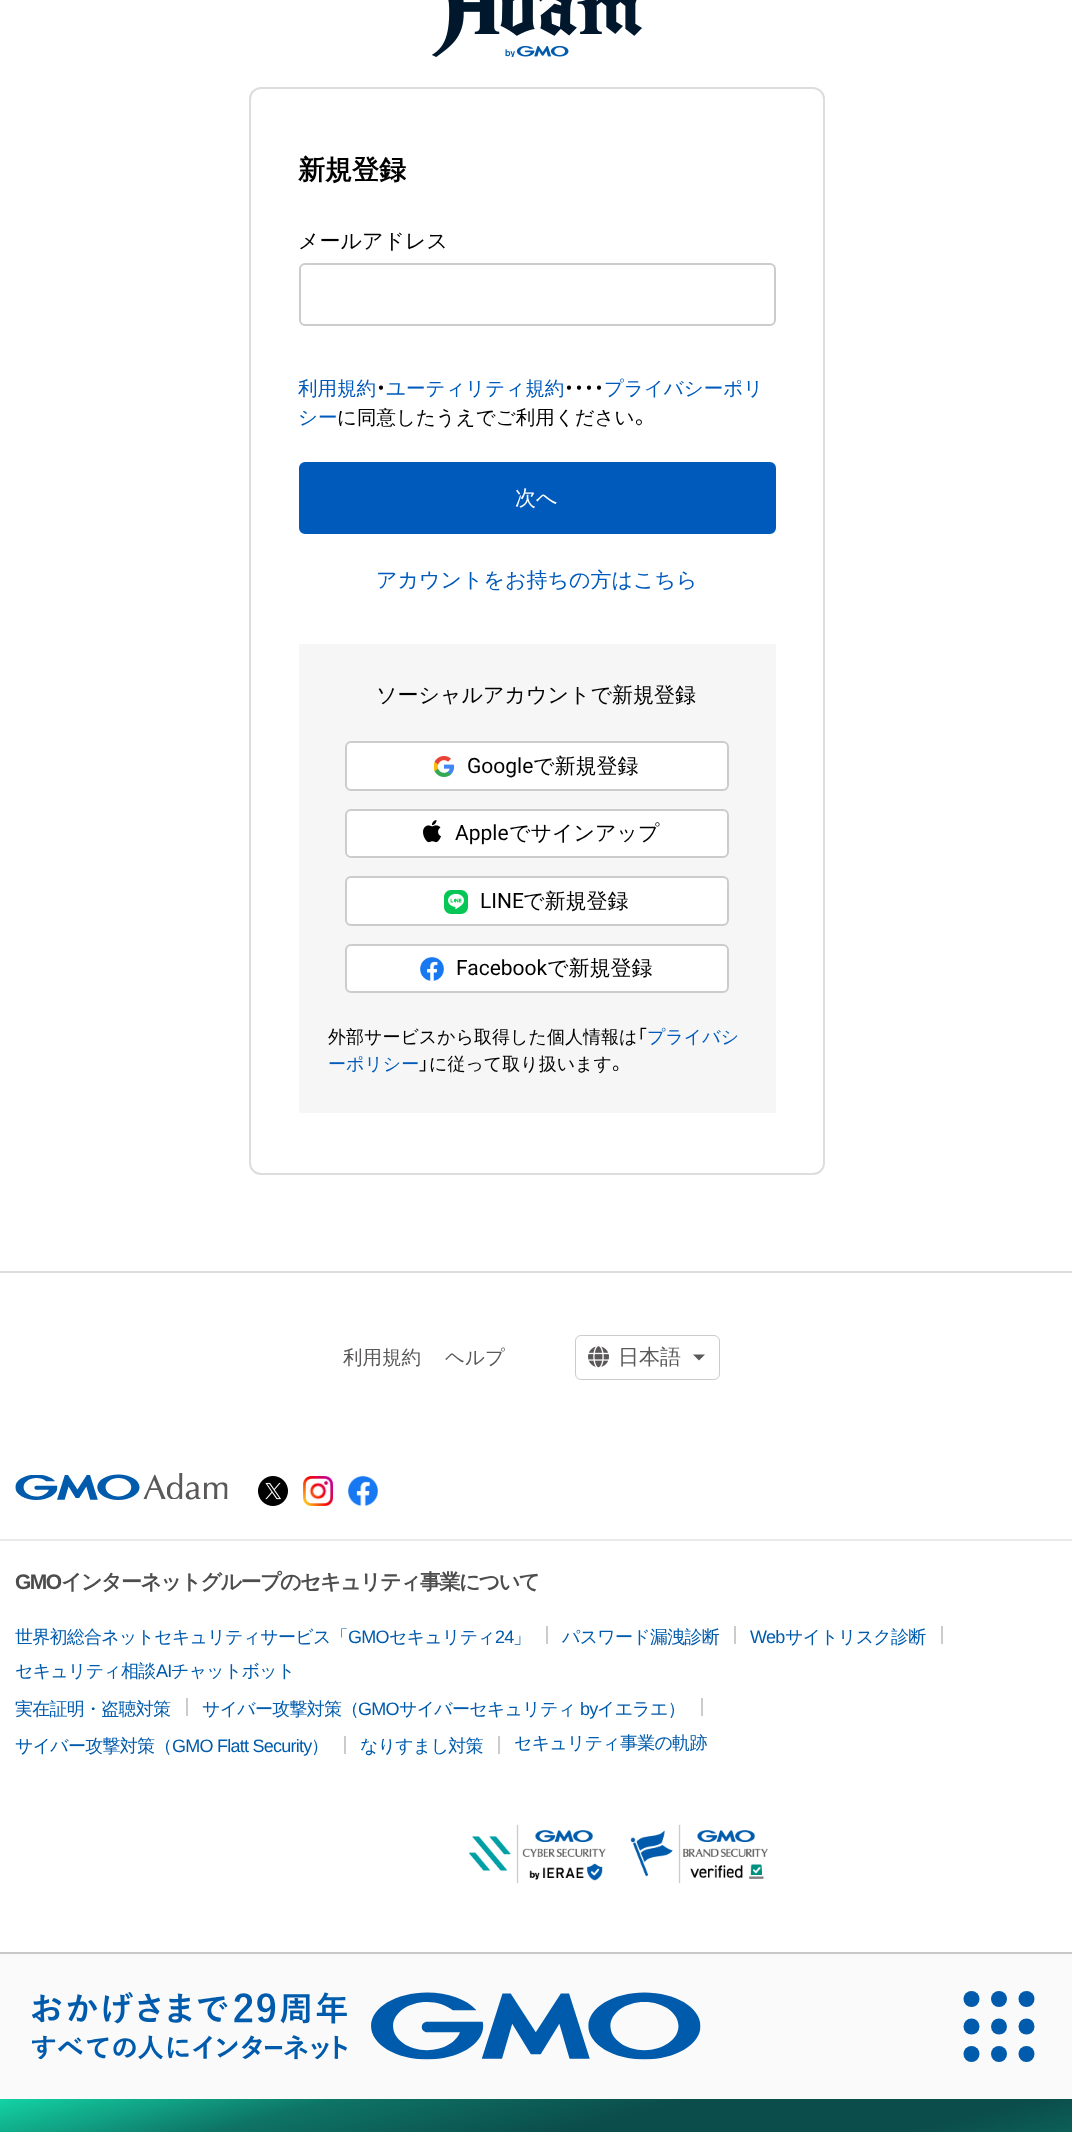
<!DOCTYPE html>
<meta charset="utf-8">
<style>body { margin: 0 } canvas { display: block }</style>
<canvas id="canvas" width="1072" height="2132"></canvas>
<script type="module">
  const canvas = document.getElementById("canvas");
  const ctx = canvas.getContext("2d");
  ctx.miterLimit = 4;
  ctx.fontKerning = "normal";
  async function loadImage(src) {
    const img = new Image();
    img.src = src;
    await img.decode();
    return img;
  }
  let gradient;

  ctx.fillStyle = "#ffffff";
  ctx.fillRect(0, 0, 1072, 2132);
  ctx.drawImage(await loadImage("img1.png"), 432, 0, 210, 57);
  ctx.beginPath();
  ctx.roundRect(250, 88, 574, 1086, 11);
  ctx.strokeStyle = "#dddddd";
  ctx.lineWidth = 2;
  ctx.stroke();
  ctx.font = "bold 27px WenQuanYi Zen Hei";
  ctx.fillStyle = "#000000";
  ctx.fillText("新規登録", 298, 179);
  ctx.font = "500 21px WenQuanYi Zen Hei";
  ctx.fillText("メールアドレス", 298, 248);
  ctx.beginPath();
  ctx.roundRect(300, 264, 475, 61, 5);
  ctx.strokeStyle = "#cccccc";
  ctx.stroke();
  ctx.font = "500 19.5px WenQuanYi Zen Hei";
  ctx.fillStyle = "#005abc";
  ctx.fillText("利用規約", 298, 395);
  ctx.font = "19.5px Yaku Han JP";
  ctx.fillStyle = "#000000";
  ctx.fillText("・", 376, 395);
  ctx.font = "500 19.5px WenQuanYi Zen Hei";
  ctx.fillStyle = "#005abc";
  ctx.fillText("ユーティリティ規約", 386, 395);
  ctx.font = "19.5px Yaku Han JP";
  ctx.fillStyle = "#000000";
  ctx.fillText("・・・・", 564, 395);
  ctx.font = "500 19.5px WenQuanYi Zen Hei";
  ctx.fillStyle = "#005abc";
  ctx.fillText("プライバシーポリ", 604, 395);
  ctx.fillText("シー", 298, 424);
  ctx.fillStyle = "#000000";
  ctx.fillText("に同意したうえでご利用ください", 337, 424);
  ctx.font = "19.5px Yaku Han JP";
  ctx.fillText("。", 635, 424);
  ctx.fillStyle = "#005abc";
  ctx.beginPath();
  ctx.roundRect(300, 463, 475, 70, 5);
  ctx.fill();
  ctx.strokeStyle = "#005abc";
  ctx.stroke();
  ctx.font = "500 21px WenQuanYi Zen Hei";
  ctx.fillStyle = "#ffffff";
  ctx.fillText("次へ", 515, 505);
  ctx.fillStyle = "#005abc";
  ctx.fillText("アカウントをお持ちの方はこちら", 376, 587);
  ctx.fillStyle = "#f6f6f6";
  ctx.fillRect(299, 644, 477, 469);
  ctx.fillStyle = "#000000";
  ctx.fillText("ソーシャルアカウントで新規登録", 376, 702);
  ctx.fillStyle = "#ffffff";
  ctx.beginPath();
  ctx.roundRect(346, 742, 382, 48, 5);
  ctx.fill();
  ctx.strokeStyle = "#cccccc";
  ctx.stroke();
  ctx.drawImage(await loadImage("img2.png"), 434, 756, 21, 21);
  ctx.font = "21px Roboto";
  ctx.fillStyle = "#000000";
  ctx.fillText("Google", 467, 773);
  ctx.font = "500 21px WenQuanYi Zen Hei";
  ctx.fillText("で新規登録", 533, 773);
  ctx.fillStyle = "#ffffff";
  ctx.beginPath();
  ctx.roundRect(346, 810, 382, 47, 5);
  ctx.fill();
  ctx.stroke();
  ctx.drawImage(await loadImage("img3.png"), 423, 820, 18, 23);
  ctx.font = "21px Roboto";
  ctx.fillStyle = "#000000";
  ctx.fillText("Apple", 455, 840);
  ctx.font = "500 21px WenQuanYi Zen Hei";
  ctx.fillText("でサインアップ", 509, 840);
  ctx.fillStyle = "#ffffff";
  ctx.beginPath();
  ctx.roundRect(346, 877, 382, 48, 5);
  ctx.fill();
  ctx.stroke();
  ctx.drawImage(await loadImage("img4.png"), 444, 890, 24, 24);
  ctx.font = "21px Roboto";
  ctx.fillStyle = "#000000";
  ctx.fillText("LINE", 480, 908);
  ctx.font = "500 21px WenQuanYi Zen Hei";
  ctx.fillText("で新規登録", 523, 908);
  ctx.fillStyle = "#ffffff";
  ctx.beginPath();
  ctx.roundRect(346, 945, 382, 47, 5);
  ctx.fill();
  ctx.stroke();
  ctx.drawImage(await loadImage("img5.png"), 420, 957, 24, 24);
  ctx.font = "21px Roboto";
  ctx.fillStyle = "#000000";
  ctx.fillText("Facebook", 456, 975);
  ctx.font = "500 21px WenQuanYi Zen Hei";
  ctx.fillText("で新規登録", 547, 975);
  ctx.font = "500 18px WenQuanYi Zen Hei";
  ctx.fillText("外部サービスから取得した個人情報は", 328, 1043);
  ctx.font = "18px Yaku Han JP";
  ctx.fillText("「", 637, 1043);
  ctx.font = "500 18px WenQuanYi Zen Hei";
  ctx.fillStyle = "#005abc";
  ctx.fillText("プライバシ", 647, 1043);
  ctx.fillText("ーポリシー", 328, 1070);
  ctx.font = "18px Yaku Han JP";
  ctx.fillStyle = "#000000";
  ctx.fillText("」", 419, 1070);
  ctx.font = "500 18px WenQuanYi Zen Hei";
  ctx.fillText("に従って取り扱います", 429, 1070);
  ctx.font = "18px Yaku Han JP";
  ctx.fillText("。", 612, 1070);
  ctx.fillStyle = "#dddddd";
  ctx.fillRect(0, 1271, 1072, 2);
  ctx.font = "500 19.5px WenQuanYi Zen Hei";
  ctx.fillStyle = "#5a5858";
  ctx.fillText("利用規約", 343, 1364);
  ctx.fillText("ヘルプ", 445, 1364);
  ctx.beginPath();
  ctx.roundRect(575.5, 1335.5, 144, 44, 5.5);
  ctx.lineWidth = 1;
  ctx.stroke();
  ctx.drawImage(await loadImage("img6.png"), 588, 1346, 21, 22);
  ctx.font = "500 21px WenQuanYi Zen Hei";
  ctx.fillText("日本語", 618, 1364);
  ctx.beginPath();
  ctx.moveTo(693, 1354.5);
  ctx.lineTo(705, 1354.5);
  ctx.lineTo(699, 1360.5);
  ctx.closePath();
  ctx.fill();
  ctx.drawImage(await loadImage("img7.png"), 15, 1473, 213, 27);
  ctx.drawImage(await loadImage("img8.png"), 258, 1476, 30, 30);
  ctx.drawImage(await loadImage("img9.png"), 303, 1476, 30, 30);
  ctx.drawImage(await loadImage("img10.png"), 348, 1476, 30, 30);
  ctx.fillStyle = "#eaeaea";
  ctx.fillRect(0, 1539, 1072, 2);
  ctx.letterSpacing = "-1.5px";
  ctx.font = "bold 21px Liberation Sans";
  ctx.fillStyle = "#4d4d4d";
  ctx.fillText("GMO", 15, 1589);
  ctx.font = "bold 21px WenQuanYi Zen Hei";
  ctx.fillText("インターネットグループのセキュリティ事業について", 61, 1589);
  ctx.letterSpacing = "-0.75px";
  ctx.font = "500 18px WenQuanYi Zen Hei";
  ctx.fillStyle = "#005bac";
  ctx.fillText("世界初総合ネットセキュリティサービス「", 15, 1643);
  ctx.font = "18px Liberation Sans";
  ctx.fillText("GMO", 348, 1643);
  ctx.font = "500 18px WenQuanYi Zen Hei";
  ctx.fillText("セキュリティ", 389, 1643);
  ctx.font = "18px Liberation Sans";
  ctx.fillText("24", 495, 1643);
  ctx.font = "500 18px WenQuanYi Zen Hei";
  ctx.fillText("」", 513, 1643);
  ctx.fillStyle = "#cccccc";
  ctx.fillRect(546, 1626, 2, 18);
  ctx.fillStyle = "#005bac";
  ctx.fillText("パスワード漏洩診断", 562, 1643);
  ctx.fillStyle = "#cccccc";
  ctx.fillRect(734, 1626, 2, 18);
  ctx.font = "18px Liberation Sans";
  ctx.fillStyle = "#005bac";
  ctx.fillText("Web", 750, 1643);
  ctx.font = "500 18px WenQuanYi Zen Hei";
  ctx.fillText("サイトリスク診断", 785, 1643);
  ctx.fillStyle = "#cccccc";
  ctx.fillRect(941, 1626, 2, 18);
  ctx.fillStyle = "#005bac";
  ctx.fillText("セキュリティ相談", 15, 1677);
  ctx.font = "18px Liberation Sans";
  ctx.fillText("AI", 156, 1677);
  ctx.font = "500 18px WenQuanYi Zen Hei";
  ctx.fillText("チャットボット", 171, 1677);
  ctx.fillText("実在証明・盗聴対策", 15, 1715);
  ctx.fillStyle = "#cccccc";
  ctx.fillRect(186, 1698, 2, 18);
  ctx.fillStyle = "#005bac";
  ctx.fillText("サイバー攻撃対策（", 202, 1715);
  ctx.font = "18px Liberation Sans";
  ctx.fillText("GMO", 358, 1715);
  ctx.font = "500 18px WenQuanYi Zen Hei";
  ctx.fillText("サイバーセキュリティ", 399, 1715);
  ctx.font = "18px Liberation Sans";
  ctx.fillText("by", 580, 1715);
  ctx.font = "500 18px WenQuanYi Zen Hei";
  ctx.fillText("イエラエ）", 597, 1715);
  ctx.fillStyle = "#cccccc";
  ctx.fillRect(701, 1698, 2, 18);
  ctx.fillStyle = "#005bac";
  ctx.fillText("サイバー攻撃対策（", 15, 1752);
  ctx.font = "18px Liberation Sans";
  ctx.fillText("GMO Flatt Security", 172, 1752);
  ctx.font = "500 18px WenQuanYi Zen Hei";
  ctx.fillText("）", 311, 1752);
  ctx.fillStyle = "#cccccc";
  ctx.fillRect(344, 1736, 2, 18);
  ctx.fillStyle = "#005bac";
  ctx.fillText("なりすまし対策", 360, 1752);
  ctx.fillStyle = "#cccccc";
  ctx.fillRect(498, 1736, 2, 18);
  ctx.fillStyle = "#005bac";
  ctx.fillText("セキュリティ事業の軌跡", 514, 1749);
  ctx.drawImage(await loadImage("img11.png"), 468, 1824, 138, 60);
  ctx.drawImage(await loadImage("img12.png"), 630, 1824, 138, 60);
  ctx.fillStyle = "#fafafa";
  ctx.fillRect(0, 1954, 1072, 145);
  ctx.fillStyle = "#c8c8c8";
  ctx.fillRect(0, 1952, 1072, 2);
  ctx.drawImage(await loadImage("img13.png"), 32, 1992, 669, 68);
  ctx.fillStyle = "#005bac";
  ctx.beginPath();
  ctx.arc(971.5, 1999, 8, 0, Math.PI * 2);
  ctx.fill();
  ctx.beginPath();
  ctx.arc(999, 1999, 8, 0, Math.PI * 2);
  ctx.fill();
  ctx.beginPath();
  ctx.arc(1026.5, 1999, 8, 0, Math.PI * 2);
  ctx.fill();
  ctx.beginPath();
  ctx.arc(971.5, 2026.5, 8, 0, Math.PI * 2);
  ctx.fill();
  ctx.beginPath();
  ctx.arc(999, 2026.5, 8, 0, Math.PI * 2);
  ctx.fill();
  ctx.beginPath();
  ctx.arc(1026.5, 2026.5, 8, 0, Math.PI * 2);
  ctx.fill();
  ctx.beginPath();
  ctx.arc(971.5, 2054, 8, 0, Math.PI * 2);
  ctx.fill();
  ctx.beginPath();
  ctx.arc(999, 2054, 8, 0, Math.PI * 2);
  ctx.fill();
  ctx.beginPath();
  ctx.arc(1026.5, 2054, 8, 0, Math.PI * 2);
  ctx.fill();
  gradient = ctx.createLinearGradient(485, 1977, 587, 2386);
  gradient.addColorStop(0, "#13d4a5");
  gradient.addColorStop(0.2, "#0e7365");
  gradient.addColorStop(0.4, "#0b4d4b");
  gradient.addColorStop(0.6, "#0b4d4b");
  gradient.addColorStop(0.8, "#0e7365");
  gradient.addColorStop(1, "#13d4a5");
  ctx.fillStyle = gradient;
  ctx.fillRect(0, 2099, 1072, 33);
</script>
